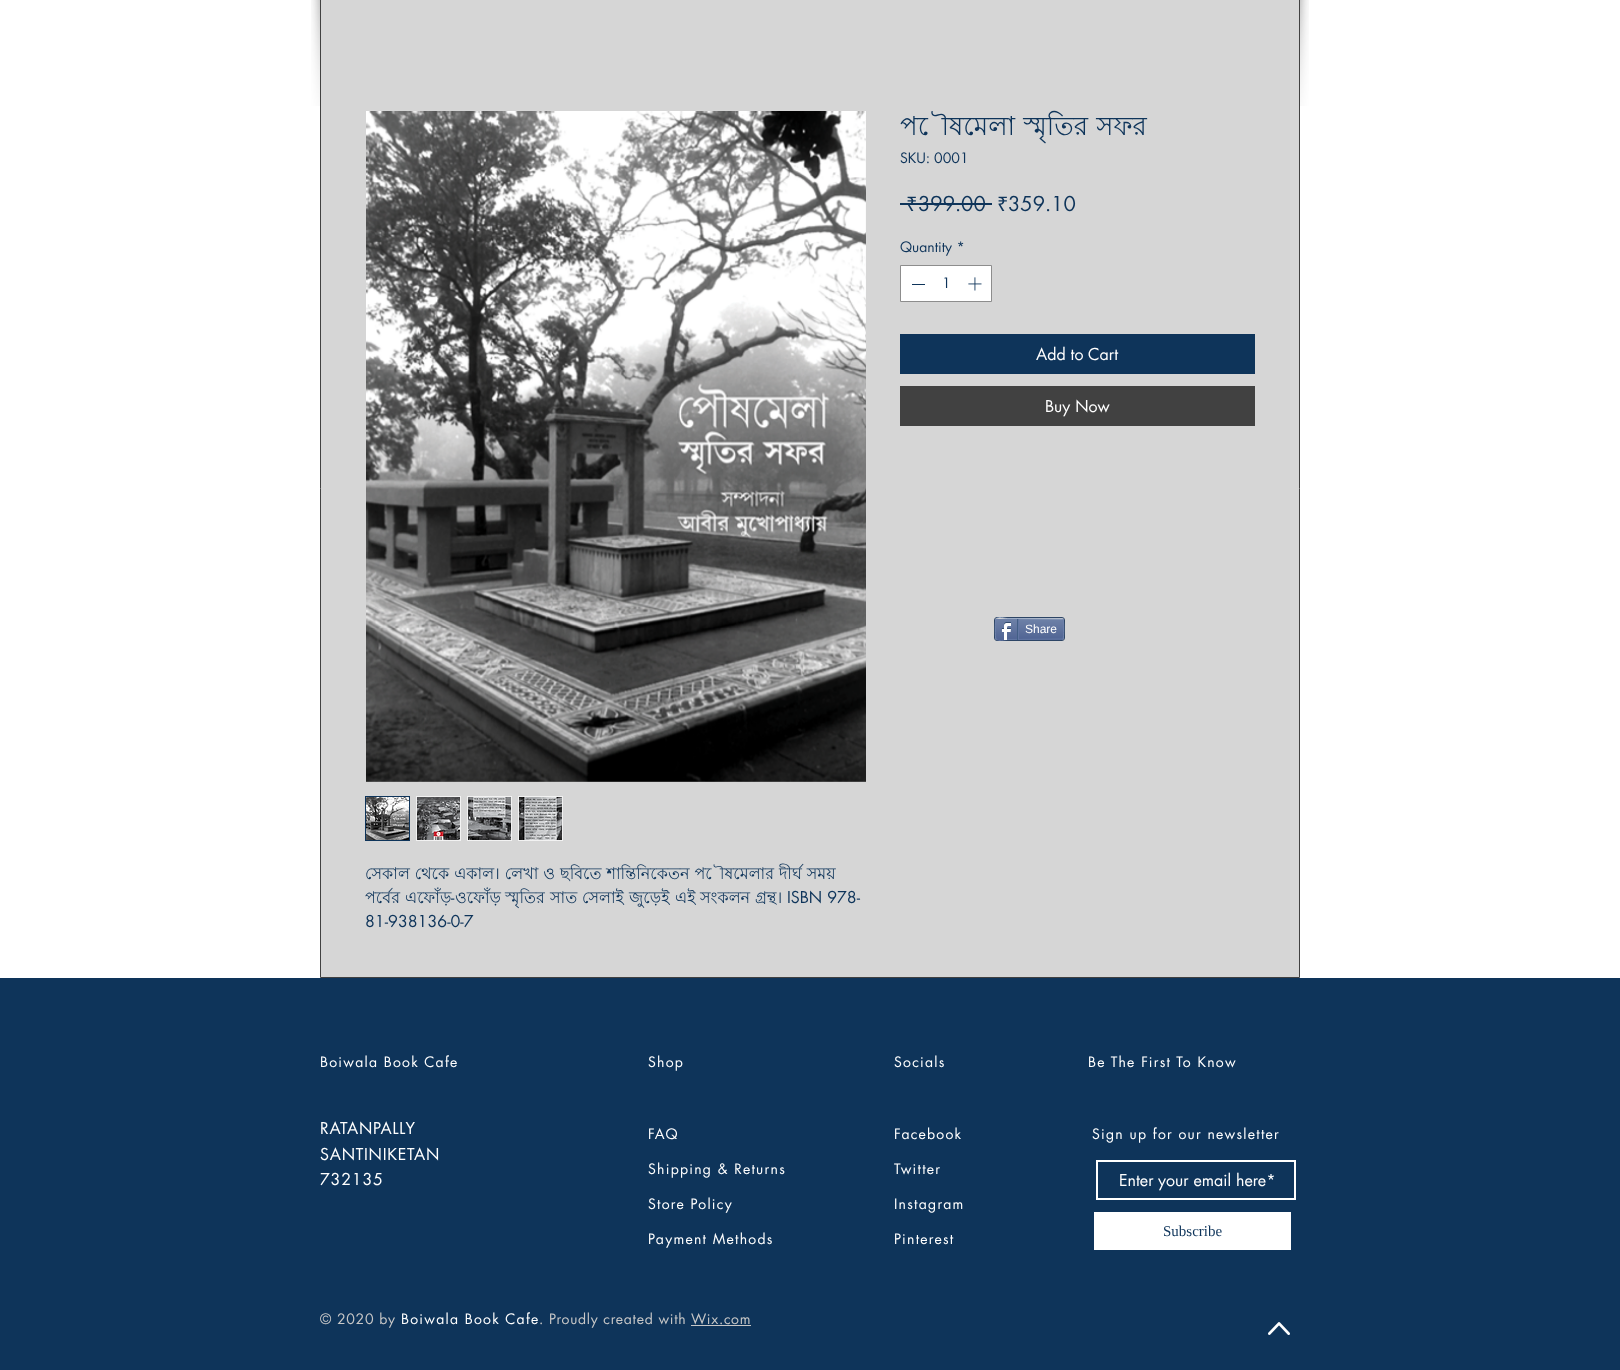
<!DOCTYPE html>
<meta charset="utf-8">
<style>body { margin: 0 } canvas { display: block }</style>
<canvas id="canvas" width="1620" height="1370"></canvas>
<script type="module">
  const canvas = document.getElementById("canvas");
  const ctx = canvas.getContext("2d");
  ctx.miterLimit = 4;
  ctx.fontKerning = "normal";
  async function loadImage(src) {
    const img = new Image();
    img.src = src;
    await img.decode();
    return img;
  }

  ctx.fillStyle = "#ffffff";
  ctx.fillRect(0, 0, 1620, 1370);
  ctx.drawImage(await loadImage("img1.png"), 311, 0, 9, 106);
  ctx.fillStyle = "#d6d6d6";
  ctx.beginPath();
  ctx.rect(320.5, -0.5, 979, 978);
  ctx.fill();
  ctx.strokeStyle = "#414141";
  ctx.stroke();
  ctx.drawImage(await loadImage("img2.png"), 1300, 0, 9, 106);
  ctx.wordSpacing = "1px";
  ctx.font = "26px Lohit Bengali";
  ctx.fillStyle = "#0e345a";
  ctx.fillText("পৌষমেলা স্মৃতির সফর", 900, 135);
  ctx.wordSpacing = "0px";
  ctx.font = "14px futura";
  ctx.fillText("SKU: 0001", 900, 163);
  ctx.font = "20px Noto Sans";
  ctx.fillText("₹", 906, 211);
  ctx.fillRect(900, 203, 92, 2);
  ctx.font = "20px futura";
  ctx.fillText("399.00", 918, 211);
  ctx.font = "20px Noto Sans";
  ctx.fillText("₹", 997, 211);
  ctx.font = "20px futura";
  ctx.fillText("359.10", 1008, 211);
  ctx.font = "14px futura";
  ctx.fillText("Quantity *", 900, 252);
  ctx.fillStyle = "#ffffff";
  ctx.beginPath();
  ctx.rect(900.5, 265.5, 91, 36);
  ctx.fill();
  ctx.strokeStyle = "#8d8d8d";
  ctx.stroke();
  ctx.fillStyle = "#0e345a";
  ctx.fillRect(912, 284, 13, 1);
  ctx.fillText("1", 942, 288);
  ctx.drawImage(await loadImage("img3.png"), 968, 277, 14, 14);
  ctx.fillRect(900, 334, 355, 40);
  ctx.font = "16px futura";
  ctx.fillStyle = "#ffffff";
  ctx.fillText("Add to Cart", 1036, 360);
  ctx.fillStyle = "#414141";
  ctx.fillRect(900, 386, 355, 40);
  ctx.fillStyle = "#ffffff";
  ctx.fillText("Buy Now", 1045, 412);
  ctx.drawImage(await loadImage("img4.png"), 366, 111, 500, 671);
  ctx.strokeStyle = "#0e345a";
  ctx.strokeRect(365.5, 796.5, 44, 44);
  ctx.drawImage(await loadImage("img5.png"), 366, 797, 43, 43);
  ctx.strokeStyle = "#f2f2f2";
  ctx.strokeRect(416.5, 796.5, 44, 44);
  ctx.drawImage(await loadImage("img6.png"), 417, 797, 43, 43);
  ctx.strokeRect(467.5, 796.5, 44, 44);
  ctx.drawImage(await loadImage("img7.png"), 468, 797, 43, 43);
  ctx.strokeRect(518.5, 796.5, 44, 44);
  ctx.drawImage(await loadImage("img8.png"), 519, 797, 43, 43);
  ctx.wordSpacing = "0.5px";
  ctx.font = "16px Lohit Bengali";
  ctx.fillStyle = "#0e345a";
  ctx.fillText("সেকাল থেকে একাল। লেখা ও ছবিতে শান্তিনিকেতন পৌষমেলার দীর্ঘ সময়", 365, 879);
  ctx.wordSpacing = "0px";
  ctx.fillText("পর্বের", 365, 903);
  ctx.fillText("এফোঁড়", 405, 903);
  ctx.font = "16px futura";
  ctx.fillText("-", 451, 903);
  ctx.font = "16px Lohit Bengali";
  ctx.fillText("ওফোঁড়", 455, 903);
  ctx.fillText("স্মৃতির", 505, 903);
  ctx.fillText("সাত", 550, 903);
  ctx.fillText("সেলাই", 582, 903);
  ctx.fillText("জুড়েই", 629, 903);
  ctx.fillText("এই", 675, 903);
  ctx.fillText("সংকলন", 700, 903);
  ctx.fillText("গ্রন্থ।", 755, 903);
  ctx.font = "16px futura";
  ctx.fillText("ISBN 978-", 787, 903);
  ctx.fillText("81-938136-0-7", 365, 927);
  ctx.beginPath();
  ctx.roundRect(994.5, 617.5, 70, 23, 2.5);
  ctx.strokeStyle = "#2d4565";
  ctx.stroke();
  ctx.drawImage(await loadImage("img9.png"), 995, 619, 69, 21);
  ctx.beginPath();
  ctx.moveTo(996, 619);
  ctx.bezierCurveTo(999, 616, 1004, 618.5, 1008, 618.5);
  ctx.lineTo(1063, 619);
  ctx.strokeStyle = "#9aabc6";
  ctx.stroke();
  ctx.beginPath();
  ctx.moveTo(1063, 619);
  ctx.bezierCurveTo(1064, 619.5, 1064, 638.5, 1063, 639);
  ctx.strokeStyle = "#6f83ad";
  ctx.stroke();
  ctx.beginPath();
  ctx.moveTo(1063, 639);
  ctx.lineTo(1008, 639.5);
  ctx.bezierCurveTo(1004, 639.5, 999, 642, 996, 639);
  ctx.strokeStyle = "#6176a3";
  ctx.stroke();
  ctx.beginPath();
  ctx.moveTo(996, 639);
  ctx.bezierCurveTo(995, 638.5, 995, 619.5, 996, 619);
  ctx.strokeStyle = "#6f83ad";
  ctx.stroke();
  ctx.drawImage(await loadImage("img10.png"), 1001, 622, 10, 18);
  ctx.fillStyle = "#425e85";
  ctx.fillRect(1017, 619, 1, 21);
  ctx.font = "12px Liberation Sans";
  ctx.fillStyle = "#ffffff";
  ctx.fillText("Share", 1025, 633);
  ctx.fillStyle = "#6176a3";
  ctx.fillRect(1018, 619, 1, 20);
  ctx.fillStyle = "#0e345a";
  ctx.fillRect(0, 978, 1620, 392);
  ctx.letterSpacing = "1.25px";
  ctx.font = "14px futura";
  ctx.fillStyle = "#ffffff";
  ctx.fillText("Boiwala Book Cafe", 320, 1067);
  ctx.fillText("Shop", 648, 1067);
  ctx.fillText("Socials", 894, 1067);
  ctx.fillText("Be The First To Know", 1088, 1067);
  ctx.letterSpacing = "0.75px";
  ctx.font = "16px futura";
  ctx.fillText("RATANPALLY", 320, 1134);
  ctx.fillText("SANTINIKETAN", 320, 1160);
  ctx.fillText("732135", 320, 1185);
  ctx.letterSpacing = "1.25px";
  ctx.font = "14px futura";
  ctx.fillText("FAQ", 648, 1139);
  ctx.fillText("Shipping & Returns", 648, 1174);
  ctx.fillText("Store Policy", 648, 1209);
  ctx.fillText("Payment Methods", 648, 1244);
  ctx.fillText("Facebook", 894, 1139);
  ctx.fillText("Twitter", 894, 1174);
  ctx.fillText("Instagram", 894, 1209);
  ctx.fillText("Pinterest", 894, 1244);
  ctx.fillText("Sign up for our newsletter", 1092, 1139);
  ctx.strokeStyle = "#ffffff";
  ctx.lineWidth = 2;
  ctx.strokeRect(1097, 1161, 198, 38);
  ctx.letterSpacing = "0px";
  ctx.font = "16px futura";
  ctx.fillText("Enter your email here*", 1119, 1186);
  ctx.fillRect(1094, 1212, 197, 38);
  ctx.font = "15px Liberation Serif";
  ctx.fillStyle = "#0e345a";
  ctx.fillText("Subscribe", 1163, 1236);
  ctx.letterSpacing = "0.7px";
  ctx.font = "14px futura";
  ctx.fillStyle = "#c7c7c7";
  ctx.fillText("© 2020 by", 320, 1324);
  ctx.letterSpacing = "1.25px";
  ctx.fillStyle = "#ffffff";
  ctx.fillText("Boiwala Book Cafe", 401, 1324);
  ctx.letterSpacing = "0.7px";
  ctx.fillStyle = "#c7c7c7";
  ctx.fillText(". Proudly created with Wix.com", 539, 1324);
  ctx.fillRect(691, 1325, 60, 1);
  ctx.drawImage(await loadImage("img11.png"), 1268, 1322, 22, 13);
</script>
